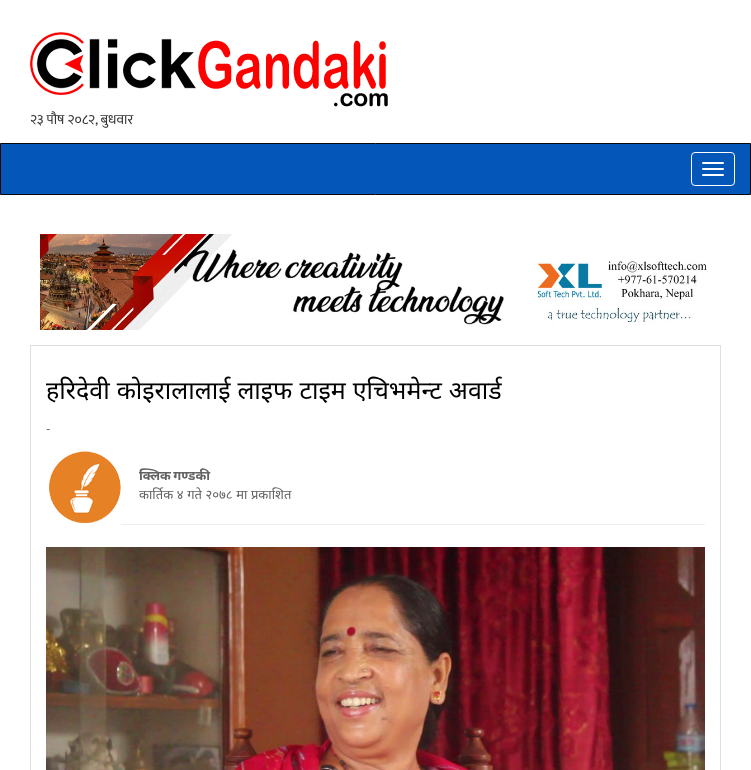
<!DOCTYPE html>
<meta charset="utf-8">
<style>body { margin: 0 } canvas { display: block }</style>
<canvas id="canvas" width="751" height="770"></canvas>
<script type="module">
  const canvas = document.getElementById("canvas");
  const ctx = canvas.getContext("2d");
  ctx.miterLimit = 4;
  ctx.fontKerning = "normal";
  async function loadImage(src) {
    const img = new Image();
    img.src = src;
    await img.decode();
    return img;
  }

  ctx.fillStyle = "#ffffff";
  ctx.fillRect(0, 0, 751, 770);
  ctx.drawImage(await loadImage("img1.png"), 30, 32, 358, 75);
  ctx.drawImage(await loadImage("img2.png"), 30, 111, 104, 17);
  ctx.fillStyle = "#0556b9";
  ctx.beginPath();
  ctx.rect(0.5, 143.5, 750, 51);
  ctx.fill();
  ctx.strokeStyle = "#080808";
  ctx.stroke();
  ctx.beginPath();
  ctx.roundRect(691.5, 152.5, 43, 33, 3.5);
  ctx.strokeStyle = "#ffffff";
  ctx.stroke();
  ctx.fillStyle = "#ffffff";
  ctx.beginPath();
  ctx.roundRect(702, 162, 22, 2, 1);
  ctx.fill();
  ctx.beginPath();
  ctx.roundRect(702, 168, 22, 2, 1);
  ctx.fill();
  ctx.beginPath();
  ctx.roundRect(702, 174, 22, 2, 1);
  ctx.fill();
  ctx.drawImage(await loadImage("img3.png"), 40, 234, 667, 96);
  ctx.strokeStyle = "#dfdfdf";
  ctx.strokeRect(30.5, 345.5, 690, 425);
  ctx.wordSpacing = "0.5px";
  ctx.font = "25px Noto Sans";
  ctx.fillStyle = "#000000";
  ctx.fillText("हरिदेवी कोइरालालाई लाइफ टाइम एचिभमेन्ट अवार्ड", 46, 399);
  ctx.wordSpacing = "0px";
  ctx.font = "13px Liberation Sans";
  ctx.fillStyle = "#767575";
  ctx.fillText("-", 46, 433);
  ctx.drawImage(await loadImage("img4.png"), 49, 451, 72, 72);
  ctx.wordSpacing = "-1px";
  ctx.font = "bold 13px Noto Sans";
  ctx.fillStyle = "#636262";
  ctx.fillText("क्लिक गण्डकी", 139, 480);
  ctx.wordSpacing = "0.25px";
  ctx.font = "13px Noto Sans";
  ctx.fillText("कार्तिक ४ गते २०७८ मा प्रकाशित", 139, 499);
  ctx.fillStyle = "#eeeeee";
  ctx.fillRect(121, 524, 584, 1);
  ctx.drawImage(await loadImage("img5.png"), 46, 547, 659, 223);
</script>
